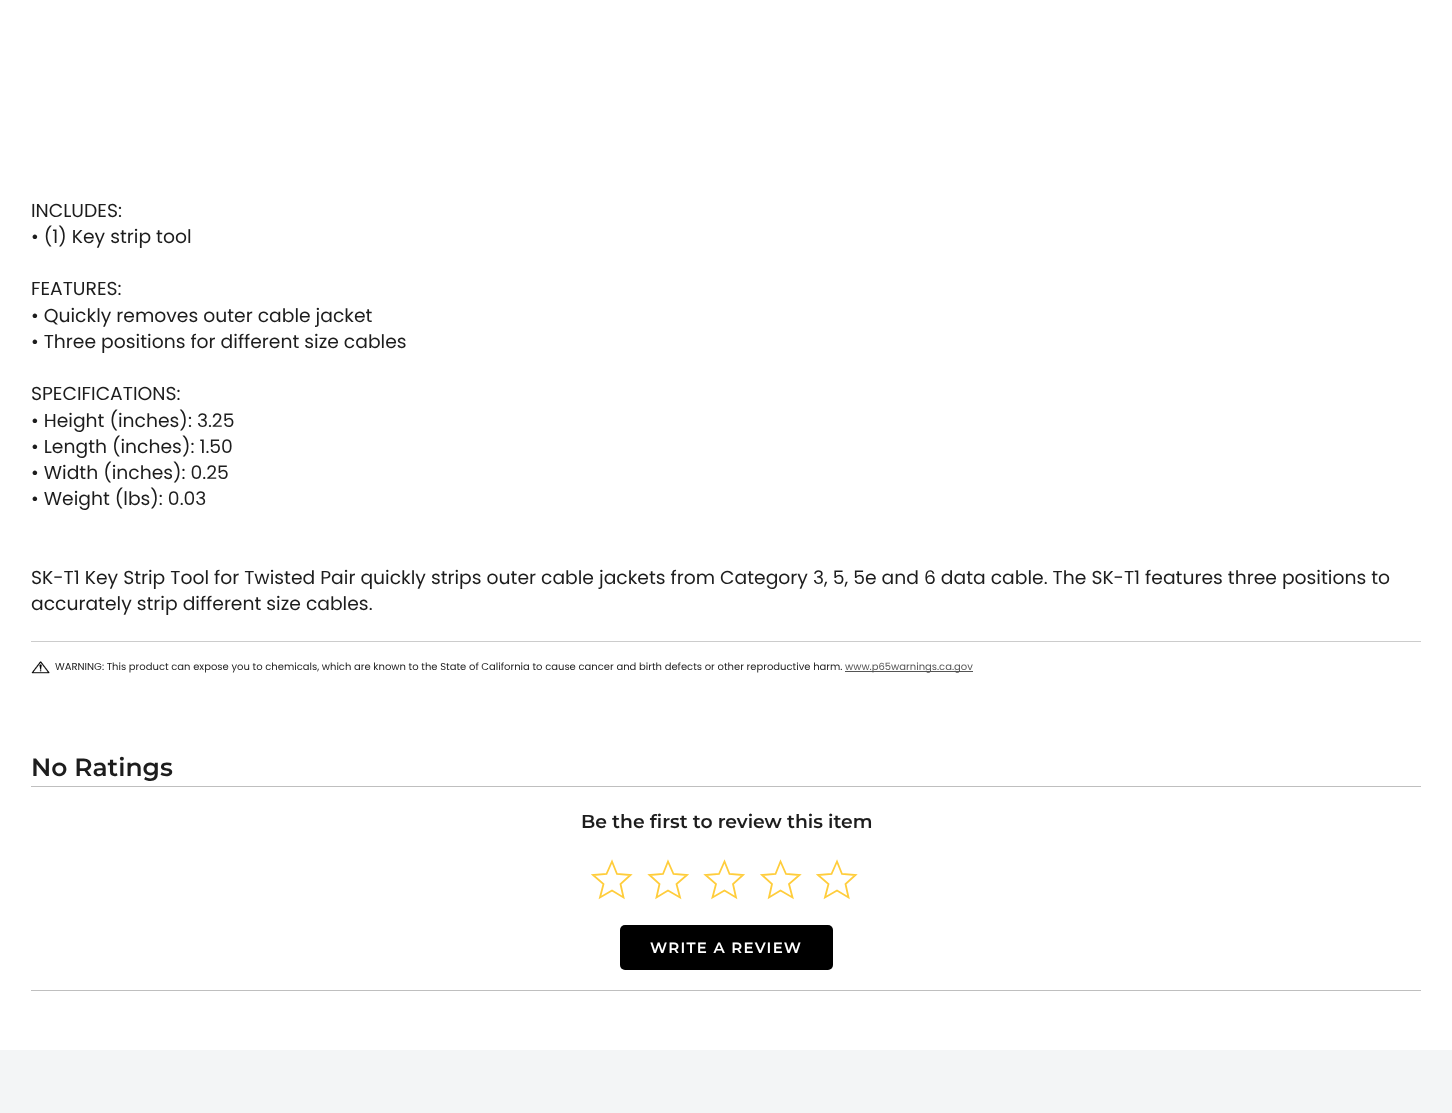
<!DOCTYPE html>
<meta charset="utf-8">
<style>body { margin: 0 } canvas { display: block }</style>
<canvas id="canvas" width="1452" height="1113"></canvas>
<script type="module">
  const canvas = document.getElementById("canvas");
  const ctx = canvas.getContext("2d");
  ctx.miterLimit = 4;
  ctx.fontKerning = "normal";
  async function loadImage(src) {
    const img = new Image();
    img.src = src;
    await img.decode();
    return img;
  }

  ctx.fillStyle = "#ffffff";
  ctx.fillRect(0, 0, 1452, 1113);
  ctx.fillStyle = "#cccccc";
  ctx.fillRect(31, 641, 1390, 1);
  ctx.font = "18.75px Poppins";
  ctx.fillStyle = "#1d1d1d";
  ctx.fillText("INCLUDES:", 31, 217);
  ctx.fillText("• (1) Key strip tool", 31, 243);
  ctx.fillText("FEATURES:", 31, 295);
  ctx.fillText("• Quickly removes outer cable jacket", 31, 322);
  ctx.fillText("• Three positions for different size cables", 31, 348);
  ctx.fillText("SPECIFICATIONS:", 31, 400);
  ctx.fillText("• Height (inches): 3.25", 31, 427);
  ctx.fillText("• Length (inches): 1.50", 31, 453);
  ctx.fillText("• Width (inches): 0.25", 31, 479);
  ctx.fillText("• Weight (lbs): 0.03", 31, 505);
  ctx.fillText("SK-T1 Key Strip Tool for Twisted Pair quickly strips outer cable jackets from Category 3, 5, 5e and 6 data cable. The SK-T1 features three positions to", 31, 584);
  ctx.fillText("accurately strip different size cables.", 31, 610);
  ctx.drawImage(await loadImage("img1.png"), 31, 661, 19, 13);
  ctx.font = "10px Poppins";
  ctx.fillText("WARNING: This product can expose you to chemicals, which are known to the State of California to cause cancer and birth defects or other reproductive harm.", 55, 670);
  ctx.fillStyle = "#555555";
  ctx.fillRect(845, 671, 128, 1);
  ctx.fillText("www.p65warnings.ca.gov", 845, 670);
  ctx.font = "600 25px Montserrat";
  ctx.fillStyle = "#1d1d1d";
  ctx.fillText("No Ratings", 31, 776);
  ctx.fillStyle = "#bfbfbf";
  ctx.fillRect(31, 786, 1390, 1);
  ctx.fillRect(31, 990, 1390, 1);
  ctx.font = "600 18.75px Montserrat";
  ctx.fillStyle = "#1d1d1d";
  ctx.fillText("Be the first to review this item", 581, 828);
  ctx.beginPath();
  ctx.moveTo(612, 890.5);
  ctx.lineTo(600, 897.5);
  ctx.lineTo(603.5, 884);
  ctx.lineTo(593, 875);
  ctx.lineTo(606.5, 874);
  ctx.lineTo(612, 861.5);
  ctx.lineTo(617, 874);
  ctx.lineTo(630.5, 875);
  ctx.lineTo(620.5, 884);
  ctx.lineTo(623.5, 897.5);
  ctx.closePath();
  ctx.strokeStyle = "#ffcd3c";
  ctx.lineWidth = 1.8;
  ctx.stroke();
  ctx.beginPath();
  ctx.moveTo(668, 890.5);
  ctx.lineTo(656.5, 897.5);
  ctx.lineTo(659.5, 884);
  ctx.lineTo(649.5, 875);
  ctx.lineTo(663, 874);
  ctx.lineTo(668, 861.5);
  ctx.lineTo(673.5, 874);
  ctx.lineTo(687, 875);
  ctx.lineTo(676.5, 884);
  ctx.lineTo(680, 897.5);
  ctx.closePath();
  ctx.stroke();
  ctx.beginPath();
  ctx.moveTo(724.5, 890.5);
  ctx.lineTo(712.5, 897.5);
  ctx.lineTo(716, 884);
  ctx.lineTo(705.5, 875);
  ctx.lineTo(719, 874);
  ctx.lineTo(724.5, 861.5);
  ctx.lineTo(729.5, 874);
  ctx.lineTo(743, 875);
  ctx.lineTo(733, 884);
  ctx.lineTo(736, 897.5);
  ctx.closePath();
  ctx.stroke();
  ctx.beginPath();
  ctx.moveTo(780.5, 890.5);
  ctx.lineTo(769, 897.5);
  ctx.lineTo(772, 884);
  ctx.lineTo(762, 875);
  ctx.lineTo(775.5, 874);
  ctx.lineTo(780.5, 861.5);
  ctx.lineTo(786, 874);
  ctx.lineTo(799.5, 875);
  ctx.lineTo(789, 884);
  ctx.lineTo(792.5, 897.5);
  ctx.closePath();
  ctx.stroke();
  ctx.beginPath();
  ctx.moveTo(837, 890.5);
  ctx.lineTo(825, 897.5);
  ctx.lineTo(828.5, 884);
  ctx.lineTo(818, 875);
  ctx.lineTo(831.5, 874);
  ctx.lineTo(837, 861.5);
  ctx.lineTo(842, 874);
  ctx.lineTo(855.5, 875);
  ctx.lineTo(845.5, 884);
  ctx.lineTo(848.5, 897.5);
  ctx.closePath();
  ctx.stroke();
  ctx.fillStyle = "#000000";
  ctx.beginPath();
  ctx.roundRect(620, 925, 213, 45, 5);
  ctx.fill();
  ctx.letterSpacing = "1.25px";
  ctx.font = "600 15px Montserrat";
  ctx.fillStyle = "#ffffff";
  ctx.fillText("WRITE A REVIEW", 650, 953);
  ctx.fillStyle = "#f3f5f6";
  ctx.fillRect(0, 1050, 1452, 63);
</script>
